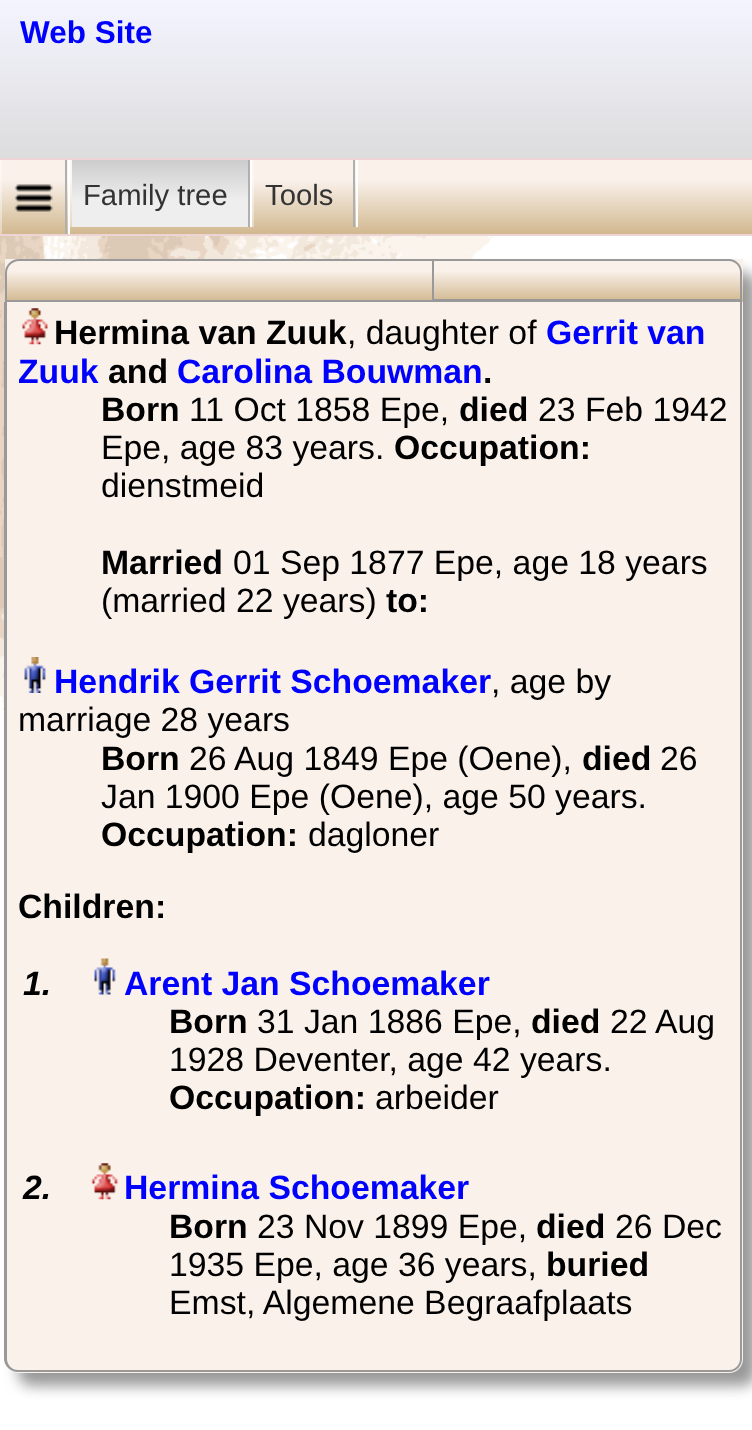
<!DOCTYPE html>
<meta charset="utf-8">
<style>body { margin: 0 } canvas { display: block }</style>
<canvas id="canvas" width="752" height="1430"></canvas>
<script type="module">
  const canvas = document.getElementById("canvas");
  const ctx = canvas.getContext("2d");
  ctx.miterLimit = 4;
  ctx.fontKerning = "normal";
  async function loadImage(src) {
    const img = new Image();
    img.src = src;
    await img.decode();
    return img;
  }
  let gradient;

  ctx.fillStyle = "#ffffff";
  ctx.fillRect(0, 0, 752, 1430);
  ctx.drawImage(await loadImage("img1.png"), 0, 236, 661, 513);
  gradient = ctx.createLinearGradient(377, 0, 377, 169);
  gradient.addColorStop(0, "#f4f4ff");
  gradient.addColorStop(1, "#dbdbdb");
  ctx.fillStyle = gradient;
  ctx.fillRect(0, 0, 752, 158);
  ctx.font = "bold 31.5px Liberation Sans";
  ctx.fillStyle = "#0000ff";
  ctx.fillText("Web Site", 20, 43);
  gradient = ctx.createLinearGradient(377, 234, 377, 160);
  gradient.addColorStop(0, "#d1b88f");
  gradient.addColorStop(0.73, "#faf1eb");
  ctx.fillStyle = gradient;
  ctx.fillRect(0, 160, 752, 74);
  ctx.fillStyle = "#eed4d4";
  ctx.fillRect(0, 158, 752, 2);
  ctx.fillRect(0, 234, 752, 2);
  ctx.fillStyle = "#ffffff";
  ctx.fillRect(68, 160, 2, 74);
  ctx.fillStyle = "rgba(255, 255, 255, 0.4)";
  ctx.fillRect(0, 160, 2, 74);
  ctx.fillStyle = "#b0b0b0";
  ctx.fillRect(65, 160, 2, 74);
  ctx.drawImage(await loadImage("img2.png"), 14, 184, 39, 28);
  ctx.fillStyle = "#ffffff";
  ctx.fillRect(250, 160, 2, 67);
  ctx.fillStyle = "rgba(255, 255, 255, 0.4)";
  ctx.fillRect(70, 160, 2, 67);
  gradient = ctx.createLinearGradient(160, 160, 160, 227);
  gradient.addColorStop(0, "#cccccc");
  gradient.addColorStop(0.6, "#eeeeee");
  gradient.addColorStop(1, "#eeeeee");
  ctx.fillStyle = gradient;
  ctx.fillRect(72, 160, 176, 67);
  ctx.fillStyle = "#b0b0b0";
  ctx.fillRect(248, 160, 2, 67);
  ctx.font = "29.25px Liberation Sans";
  ctx.fillStyle = "#333333";
  ctx.fillText("Family tree", 83, 205);
  ctx.fillStyle = "#ffffff";
  ctx.fillRect(356, 160, 2, 67);
  ctx.fillStyle = "rgba(255, 255, 255, 0.4)";
  ctx.fillRect(252, 160, 2, 67);
  ctx.fillStyle = "#b0b0b0";
  ctx.fillRect(353, 160, 2, 67);
  ctx.fillStyle = "#333333";
  ctx.fillText("Tools", 265, 205);
  ctx.fillStyle = "#999999";
  ctx.filter = "blur(7px)";
  ctx.beginPath();
  ctx.roundRect(18, 272, 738, 1114, 14);
  ctx.fill();
  ctx.filter = "none";
  ctx.fillStyle = "#faf1eb";
  ctx.beginPath();
  ctx.roundRect(5, 259, 738, 1114, 14);
  ctx.fill();
  gradient = ctx.createLinearGradient(374, 302, 374, 259);
  gradient.addColorStop(0, "#d1b88f");
  gradient.addColorStop(0.73, "#faf1eb");
  ctx.fillStyle = gradient;
  ctx.fillRect(5, 259, 738, 43);
  ctx.beginPath();
  ctx.roundRect(6, 260, 427, 41, [13, 0, 0, 0]);
  ctx.strokeStyle = "#999999";
  ctx.lineWidth = 2;
  ctx.stroke();
  ctx.fillStyle = "#999999";
  ctx.beginPath();
  ctx.moveTo(434, 259);
  ctx.lineTo(729, 259);
  ctx.bezierCurveTo(736, 259, 742, 265, 742, 272);
  ctx.lineTo(742, 302);
  ctx.lineTo(434, 302);
  ctx.closePath();
  ctx.moveTo(434, 261);
  ctx.lineTo(729, 261);
  ctx.bezierCurveTo(735, 261, 740, 266, 740, 272);
  ctx.lineTo(740, 299);
  ctx.lineTo(434, 299);
  ctx.closePath();
  ctx.fill("evenodd");
  ctx.beginPath();
  ctx.moveTo(4, 302);
  ctx.lineTo(742, 302);
  ctx.lineTo(742, 1359);
  ctx.bezierCurveTo(742, 1366, 736, 1372, 729, 1372);
  ctx.lineTo(18, 1372);
  ctx.bezierCurveTo(11, 1372, 4, 1366, 4, 1359);
  ctx.closePath();
  ctx.moveTo(7, 302);
  ctx.lineTo(740, 302);
  ctx.lineTo(740, 1359);
  ctx.bezierCurveTo(740, 1365, 735, 1370, 729, 1370);
  ctx.lineTo(18, 1370);
  ctx.bezierCurveTo(12, 1370, 7, 1365, 7, 1359);
  ctx.closePath();
  ctx.fill("evenodd");
  ctx.drawImage(await loadImage("img3.png"), 22, 308, 26, 37);
  ctx.font = "bold 33.75px Liberation Sans";
  ctx.fillStyle = "#000000";
  ctx.fillText("Hermina van Zuuk", 54, 344);
  ctx.font = "33.75px Liberation Sans";
  ctx.fillText(", daughter of", 347, 344);
  ctx.font = "bold 33.75px Liberation Sans";
  ctx.fillStyle = "#0000ff";
  ctx.fillText("Gerrit van", 546, 344);
  ctx.fillText("Zuuk", 18, 383);
  ctx.fillStyle = "#000000";
  ctx.fillText("and", 108, 383);
  ctx.fillStyle = "#0000ff";
  ctx.fillText("Carolina Bouwman", 177, 383);
  ctx.fillStyle = "#000000";
  ctx.fillText(".", 483, 383);
  ctx.fillText("Born", 101, 421);
  ctx.font = "33.75px Liberation Sans";
  ctx.fillText("11 Oct 1858 Epe,", 189, 421);
  ctx.font = "bold 33.75px Liberation Sans";
  ctx.fillText("died", 459, 421);
  ctx.font = "33.75px Liberation Sans";
  ctx.fillText("23 Feb 1942", 538, 421);
  ctx.fillText("Epe, age 83 years.", 101, 459);
  ctx.font = "bold 33.75px Liberation Sans";
  ctx.fillText("Occupation:", 394, 459);
  ctx.font = "33.75px Liberation Sans";
  ctx.fillText("dienstmeid", 101, 497);
  ctx.font = "bold 33.75px Liberation Sans";
  ctx.fillText("Married", 101, 574);
  ctx.font = "33.75px Liberation Sans";
  ctx.fillText("01 Sep 1877 Epe, age 18 years", 233, 574);
  ctx.fillText("(married 22 years)", 101, 612);
  ctx.font = "bold 33.75px Liberation Sans";
  ctx.fillText("to:", 386, 612);
  ctx.drawImage(await loadImage("img4.png"), 24, 657, 22, 36);
  ctx.fillStyle = "#0000ff";
  ctx.fillText("Hendrik Gerrit Schoemaker", 54, 693);
  ctx.font = "33.75px Liberation Sans";
  ctx.fillStyle = "#000000";
  ctx.fillText(", age by", 491, 693);
  ctx.fillText("marriage 28 years", 18, 731);
  ctx.font = "bold 33.75px Liberation Sans";
  ctx.fillText("Born", 101, 770);
  ctx.font = "33.75px Liberation Sans";
  ctx.fillText("26 Aug 1849 Epe (Oene),", 189, 770);
  ctx.font = "bold 33.75px Liberation Sans";
  ctx.fillText("died", 582, 770);
  ctx.font = "33.75px Liberation Sans";
  ctx.fillText("26", 660, 770);
  ctx.fillText("Jan 1900 Epe (Oene), age 50 years.", 101, 808);
  ctx.font = "bold 33.75px Liberation Sans";
  ctx.fillText("Occupation:", 101, 846);
  ctx.font = "33.75px Liberation Sans";
  ctx.fillText("dagloner", 308, 846);
  ctx.font = "bold 33.75px Liberation Sans";
  ctx.fillText("Children:", 18, 918);
  ctx.font = "italic bold 33.75px Liberation Sans";
  ctx.fillText("1.", 23, 995);
  ctx.drawImage(await loadImage("img5.png"), 94, 958, 22, 37);
  ctx.font = "bold 33.75px Liberation Sans";
  ctx.fillStyle = "#0000ff";
  ctx.fillText("Arent Jan Schoemaker", 124, 995);
  ctx.fillStyle = "#000000";
  ctx.fillText("Born", 169, 1033);
  ctx.font = "33.75px Liberation Sans";
  ctx.fillText("31 Jan 1886 Epe,", 257, 1033);
  ctx.font = "bold 33.75px Liberation Sans";
  ctx.fillText("died", 531, 1033);
  ctx.font = "33.75px Liberation Sans";
  ctx.fillText("22 Aug", 610, 1033);
  ctx.fillText("1928 Deventer, age 42 years.", 169, 1071);
  ctx.font = "bold 33.75px Liberation Sans";
  ctx.fillText("Occupation:", 169, 1109);
  ctx.font = "33.75px Liberation Sans";
  ctx.fillText("arbeider", 375, 1109);
  ctx.font = "italic bold 33.75px Liberation Sans";
  ctx.fillText("2.", 23, 1199);
  ctx.drawImage(await loadImage("img6.png"), 91, 1163, 27, 37);
  ctx.font = "bold 33.75px Liberation Sans";
  ctx.fillStyle = "#0000ff";
  ctx.fillText("Hermina Schoemaker", 124, 1199);
  ctx.fillStyle = "#000000";
  ctx.fillText("Born", 169, 1238);
  ctx.font = "33.75px Liberation Sans";
  ctx.fillText("23 Nov 1899 Epe,", 257, 1238);
  ctx.font = "bold 33.75px Liberation Sans";
  ctx.fillText("died", 536, 1238);
  ctx.font = "33.75px Liberation Sans";
  ctx.fillText("26 Dec", 615, 1238);
  ctx.fillText("1935 Epe, age 36 years,", 169, 1276);
  ctx.font = "bold 33.75px Liberation Sans";
  ctx.fillText("buried", 546, 1276);
  ctx.font = "33.75px Liberation Sans";
  ctx.fillText("Emst, Algemene Begraafplaats", 169, 1314);
</script>
